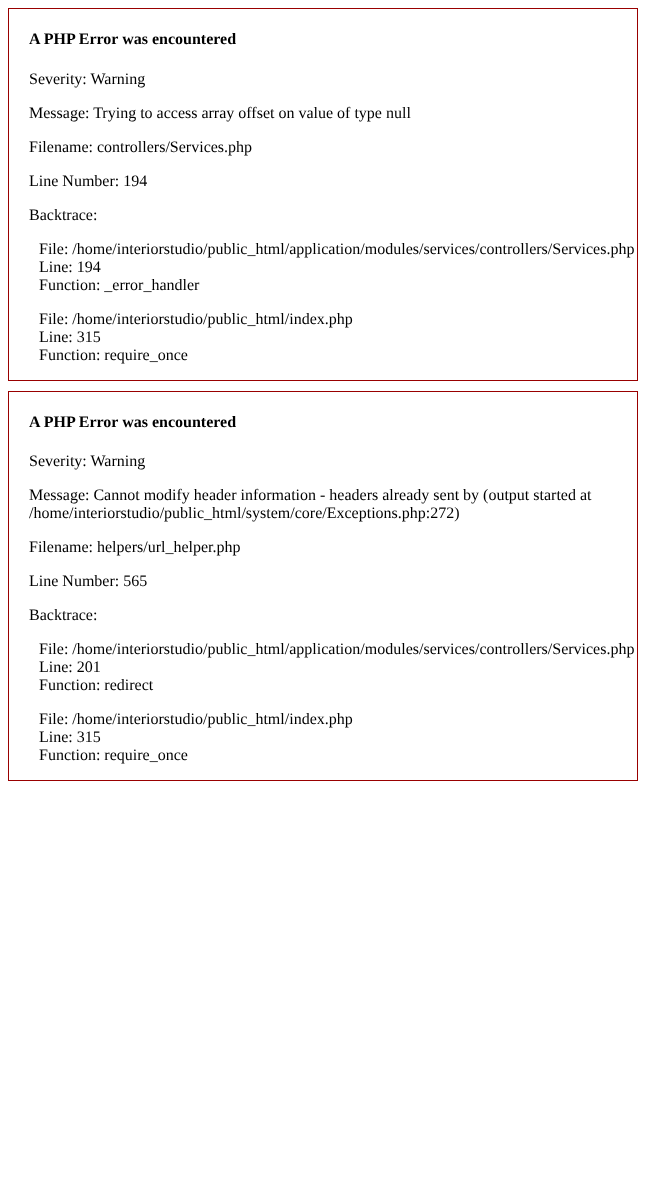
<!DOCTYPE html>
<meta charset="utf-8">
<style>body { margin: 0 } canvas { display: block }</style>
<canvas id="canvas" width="646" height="1202"></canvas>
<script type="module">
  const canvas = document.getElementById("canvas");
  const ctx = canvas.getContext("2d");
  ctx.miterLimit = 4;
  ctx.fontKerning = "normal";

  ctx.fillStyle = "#ffffff";
  ctx.fillRect(0, 0, 646, 1202);
  ctx.strokeStyle = "#990000";
  ctx.strokeRect(8.5, 8.5, 629, 372);
  ctx.font = "bold 16px Liberation Serif";
  ctx.fillStyle = "#000000";
  ctx.fillText("A PHP Error was encountered", 29, 44);
  ctx.font = "16px Liberation Serif";
  ctx.fillText("Severity: Warning", 29, 84);
  ctx.fillText("Message: Trying to access array offset on value of type null", 29, 118);
  ctx.fillText("Filename: controllers/Services.php", 29, 152);
  ctx.fillText("Line Number: 194", 29, 186);
  ctx.fillText("Backtrace:", 29, 220);
  ctx.fillText("File: /home/interiorstudio/public_html/application/modules/services/controllers/Services.php", 39, 254);
  ctx.fillText("Line: 194", 39, 272);
  ctx.fillText("Function: _error_handler", 39, 290);
  ctx.fillText("File: /home/interiorstudio/public_html/index.php", 39, 324);
  ctx.fillText("Line: 315", 39, 342);
  ctx.fillText("Function: require_once", 39, 360);
  ctx.strokeRect(8.5, 391.5, 629, 389);
  ctx.font = "bold 16px Liberation Serif";
  ctx.fillText("A PHP Error was encountered", 29, 427);
  ctx.font = "16px Liberation Serif";
  ctx.fillText("Severity: Warning", 29, 466);
  ctx.fillText("Message: Cannot modify header information - headers already sent by (output started at", 29, 500);
  ctx.fillText("/home/interiorstudio/public_html/system/core/Exceptions.php:272)", 29, 518);
  ctx.fillText("Filename: helpers/url_helper.php", 29, 552);
  ctx.fillText("Line Number: 565", 29, 586);
  ctx.fillText("Backtrace:", 29, 620);
  ctx.fillText("File: /home/interiorstudio/public_html/application/modules/services/controllers/Services.php", 39, 654);
  ctx.fillText("Line: 201", 39, 672);
  ctx.fillText("Function: redirect", 39, 690);
  ctx.fillText("File: /home/interiorstudio/public_html/index.php", 39, 724);
  ctx.fillText("Line: 315", 39, 742);
  ctx.fillText("Function: require_once", 39, 760);
</script>
